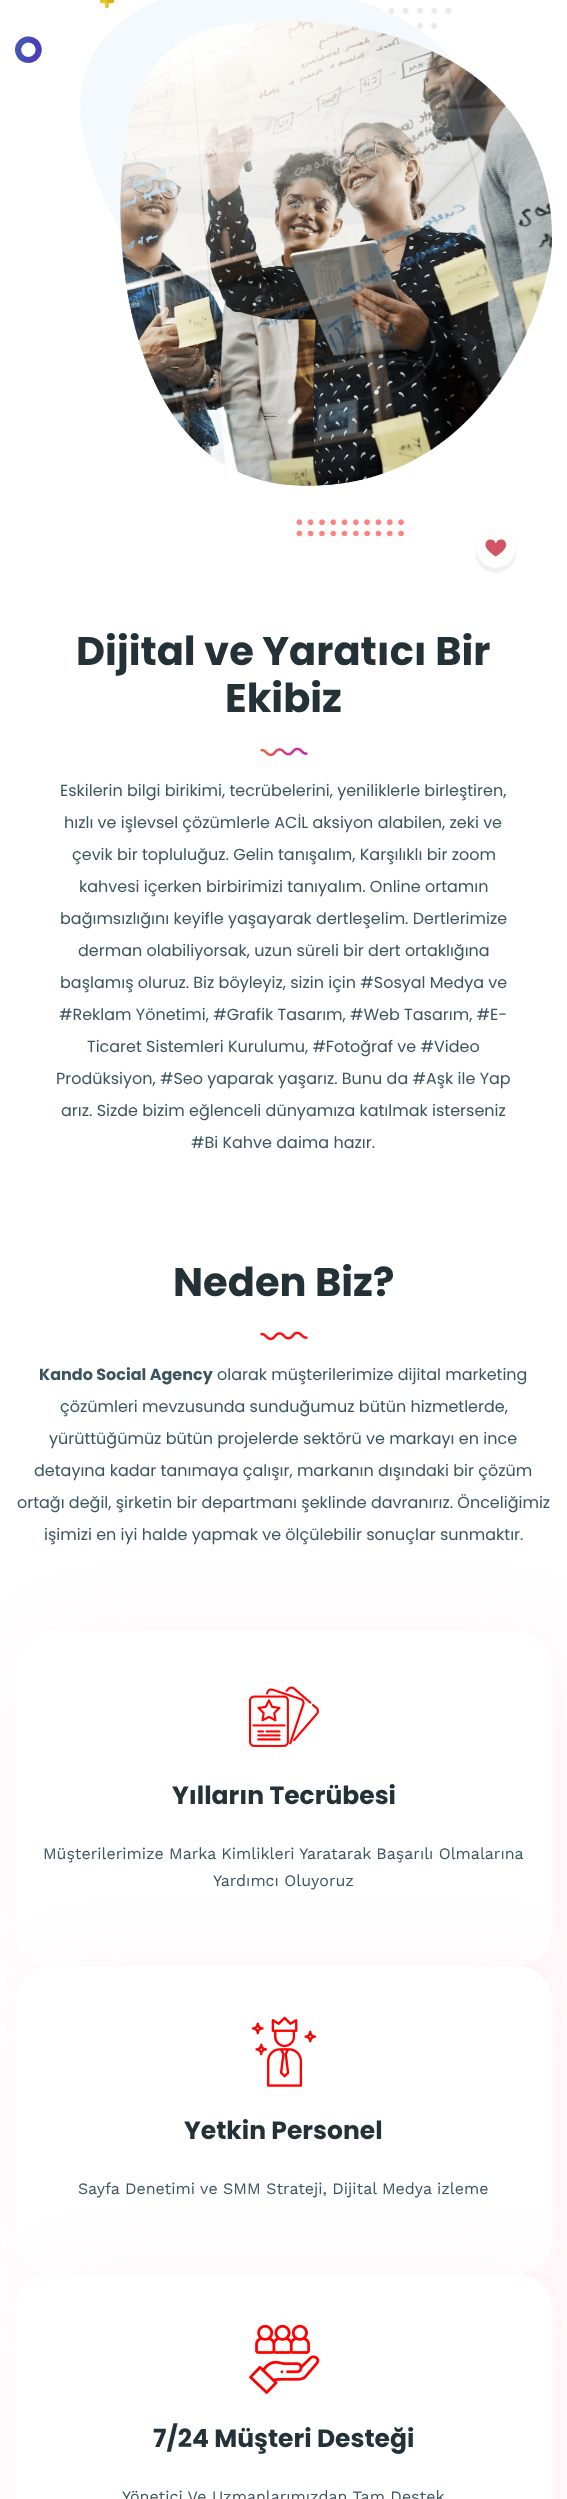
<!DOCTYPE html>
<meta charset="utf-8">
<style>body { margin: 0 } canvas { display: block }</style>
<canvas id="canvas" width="567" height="2499"></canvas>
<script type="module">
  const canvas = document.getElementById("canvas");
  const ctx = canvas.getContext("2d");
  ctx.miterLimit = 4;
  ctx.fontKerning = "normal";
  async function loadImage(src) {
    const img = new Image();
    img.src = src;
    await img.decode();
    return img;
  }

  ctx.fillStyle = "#ffffff";
  ctx.fillRect(0, 0, 567, 2499);
  ctx.drawImage(await loadImage("img1.png"), 15, 0, 537, 574);
  ctx.font = "bold 40px Poppins";
  ctx.fillStyle = "#243238";
  ctx.fillText("Dijital ve Yaratıcı Bir", 76, 665);
  ctx.fillText("Ekibiz", 225, 712);
  ctx.drawImage(await loadImage("img2.png"), 260, 747, 48, 10);
  ctx.font = "16px Poppins";
  ctx.fillStyle = "#3b545f";
  ctx.fillText("Eskilerin bilgi birikimi, tecrübelerini, yeniliklerle birleştiren,", 60, 796);
  ctx.fillText("hızlı ve işlevsel çözümlerle ACİL aksiyon alabilen, zeki ve", 64, 828);
  ctx.fillText("çevik bir topluluğuz. Gelin tanışalım, Karşılıklı bir zoom", 72, 860);
  ctx.fillText("kahvesi içerken birbirimizi tanıyalım. Online ortamın", 79, 892);
  ctx.fillText("bağımsızlığını keyifle yaşayarak dertleşelim. Dertlerimize", 60, 924);
  ctx.fillText("derman olabiliyorsak, uzun süreli bir dert ortaklığına", 78, 956);
  ctx.fillText("başlamış oluruz. Biz böyleyiz, sizin için #Sosyal Medya ve", 60, 988);
  ctx.fillText("#Reklam Yönetimi, #Grafik Tasarım, #Web Tasarım, #E-", 59, 1020);
  ctx.fillText("Ticaret Sistemleri Kurulumu, #Fotoğraf ve #Video", 87, 1052);
  ctx.fillText("Prodüksiyon, #Seo yaparak yaşarız. Bunu da #Aşk ile Yap", 56, 1084);
  ctx.fillText("arız. Sizde bizim eğlenceli dünyamıza katılmak isterseniz", 61, 1116);
  ctx.fillText("#Bi Kahve daima hazır.", 191, 1148);
  ctx.font = "bold 40px Poppins";
  ctx.fillStyle = "#243238";
  ctx.fillText("Neden Biz?", 173, 1296);
  ctx.drawImage(await loadImage("img3.png"), 260, 1331, 48, 10);
  ctx.font = "bold 16px Poppins";
  ctx.fillStyle = "#3b545f";
  ctx.fillText("Kando Social Agency", 39, 1380);
  ctx.font = "16px Poppins";
  ctx.fillText("olarak müşterilerimize dijital marketing", 217, 1380);
  ctx.fillText("çözümleri mevzusunda sunduğumuz bütün hizmetlerde,", 60, 1412);
  ctx.fillText("yürüttüğümüz bütün projelerde sektörü ve markayı en ince", 49, 1444);
  ctx.fillText("detayına kadar tanımaya çalışır, markanın dışındaki bir çözüm", 34, 1476);
  ctx.fillText("ortağı değil, şirketin bir departmanı şeklinde davranırız. Önceliğimiz", 17, 1508);
  ctx.fillText("işimizi en iyi halde yapmak ve ölçülebilir sonuçlar sunmaktır.", 44, 1540);
  ctx.fillStyle = "rgba(237, 9, 54, 0.05)";
  ctx.filter = "blur(50px)";
  ctx.beginPath();
  ctx.roundRect(35, 1646, 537, 335, 35);
  ctx.fill();
  ctx.filter = "none";
  ctx.fillStyle = "#ffffff";
  ctx.beginPath();
  ctx.roundRect(15, 1631, 537, 335, 35);
  ctx.fill();
  ctx.drawImage(await loadImage("img4.png"), 249, 1686, 70, 61);
  ctx.font = "bold 25px Poppins";
  ctx.fillStyle = "#243238";
  ctx.fillText("Yılların Tecrübesi", 172, 1804);
  ctx.font = "16px Work Sans";
  ctx.fillStyle = "#3b545f";
  ctx.fillText("Müşterilerimize Marka Kimlikleri Yaratarak Başarılı Olmalarına", 43, 1859);
  ctx.fillText("Yardımcı Oluyoruz", 213, 1886);
  ctx.fillStyle = "rgba(237, 9, 54, 0.05)";
  ctx.filter = "blur(50px)";
  ctx.beginPath();
  ctx.roundRect(35, 1981, 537, 308, 35);
  ctx.fill();
  ctx.filter = "none";
  ctx.fillStyle = "#ffffff";
  ctx.beginPath();
  ctx.roundRect(15, 1966, 537, 308, 35);
  ctx.fill();
  ctx.drawImage(await loadImage("img5.png"), 251, 2016, 66, 71);
  ctx.font = "bold 25px Poppins";
  ctx.fillStyle = "#243238";
  ctx.fillText("Yetkin Personel", 184, 2139);
  ctx.font = "16px Work Sans";
  ctx.fillStyle = "#3b545f";
  ctx.fillText("Sayfa Denetimi ve SMM Strateji, Dijital Medya izleme", 78, 2194);
  ctx.fillStyle = "rgba(237, 9, 54, 0.05)";
  ctx.filter = "blur(50px)";
  ctx.beginPath();
  ctx.roundRect(35, 2289, 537, 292, 35);
  ctx.fill();
  ctx.filter = "none";
  ctx.fillStyle = "#ffffff";
  ctx.beginPath();
  ctx.roundRect(15, 2274, 537, 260, 35);
  ctx.fill();
  ctx.drawImage(await loadImage("img6.png"), 249, 2324, 71, 70);
  ctx.font = "bold 25px Poppins";
  ctx.fillStyle = "#243238";
  ctx.fillText("7/24 Müşteri Desteği", 153, 2447);
  ctx.font = "16px Work Sans";
  ctx.fillStyle = "#3b545f";
  ctx.fillText("Yönetici Ve Uzmanlarımızdan Tam Destek", 122, 2502);
</script>
